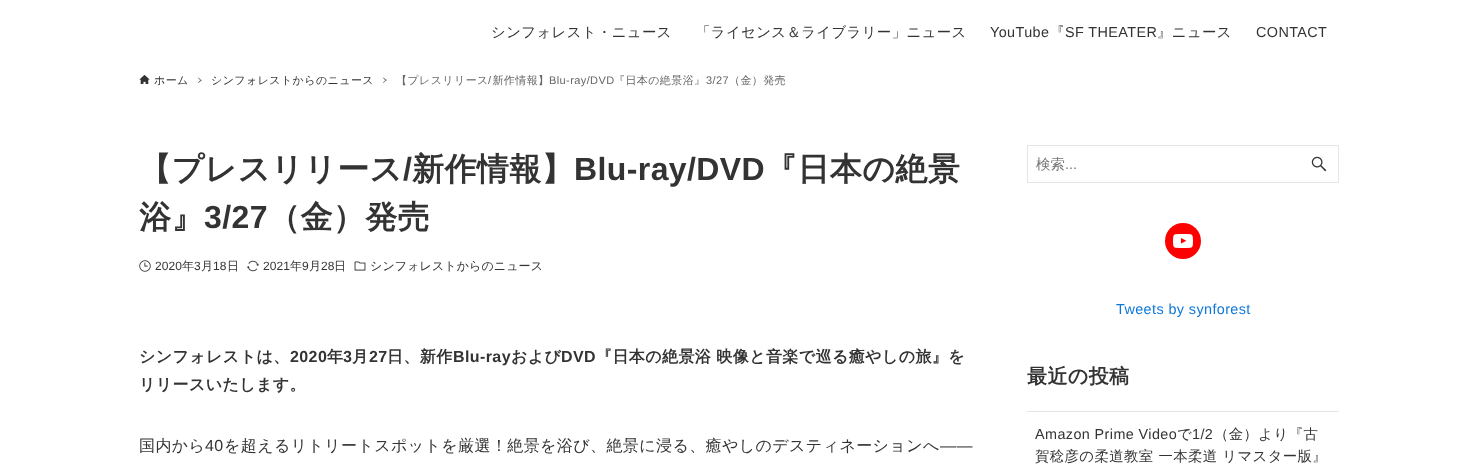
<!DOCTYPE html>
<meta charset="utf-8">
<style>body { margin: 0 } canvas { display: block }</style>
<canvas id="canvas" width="1478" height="471"></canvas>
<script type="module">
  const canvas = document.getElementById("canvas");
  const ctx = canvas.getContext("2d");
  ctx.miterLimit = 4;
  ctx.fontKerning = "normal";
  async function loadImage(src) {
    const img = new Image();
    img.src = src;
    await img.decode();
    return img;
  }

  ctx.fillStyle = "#ffffff";
  ctx.fillRect(0, 0, 1478, 471);
  ctx.letterSpacing = "0.4px";
  ctx.font = "500 14.4px WenQuanYi Zen Hei";
  ctx.fillStyle = "#333333";
  ctx.fillText("シンフォレスト・ニュース", 491, 37);
  ctx.fillText("「ライセンス＆ライブラリー」ニュース", 696, 37);
  ctx.font = "14.4px Liberation Sans";
  ctx.fillText("YouTube", 990, 37);
  ctx.font = "500 14.4px WenQuanYi Zen Hei";
  ctx.fillText("『", 1050, 37);
  ctx.font = "14.4px Liberation Sans";
  ctx.fillText("SF THEATER", 1065, 37);
  ctx.font = "500 14.4px WenQuanYi Zen Hei";
  ctx.fillText("』ニュース", 1157, 37);
  ctx.font = "14.4px Liberation Sans";
  ctx.fillText("CONTACT", 1256, 37);
  ctx.drawImage(await loadImage("img1.png"), 139, 75, 11, 9);
  ctx.font = "500 11px WenQuanYi Zen Hei";
  ctx.fillText("ホーム", 154, 84);
  ctx.fillStyle = "#666666";
  ctx.beginPath();
  ctx.moveTo(198.5, 77.5);
  ctx.lineTo(201.5, 80.5);
  ctx.lineTo(201, 81);
  ctx.lineTo(198, 78);
  ctx.closePath();
  ctx.fill();
  ctx.beginPath();
  ctx.moveTo(201, 79.5);
  ctx.lineTo(201.5, 80.5);
  ctx.lineTo(198.5, 83);
  ctx.lineTo(198, 82.5);
  ctx.closePath();
  ctx.fill();
  ctx.fillStyle = "#333333";
  ctx.fillText("シンフォレストからのニュース", 211, 84);
  ctx.fillStyle = "#666666";
  ctx.beginPath();
  ctx.moveTo(383.5, 77.5);
  ctx.lineTo(386.5, 80);
  ctx.lineTo(386, 81);
  ctx.lineTo(383, 78);
  ctx.closePath();
  ctx.fill();
  ctx.beginPath();
  ctx.moveTo(386, 79.5);
  ctx.lineTo(386.5, 80);
  ctx.lineTo(383.5, 83);
  ctx.lineTo(383, 82.5);
  ctx.closePath();
  ctx.fill();
  ctx.fillText("【プレスリリース 新作情報】", 396, 84);
  ctx.fillText("『日本の絶景浴』", 614, 84);
  ctx.fillText("（金）発売", 729, 84);
  ctx.font = "11px Liberation Sans";
  ctx.fillText("/", 488, 84);
  ctx.fillText("Blu-ray/DVD", 549, 84);
  ctx.fillText("3/27", 706, 84);
  ctx.font = "bold 32px WenQuanYi Zen Hei";
  ctx.fillStyle = "#333333";
  ctx.fillText("【プレスリリース", 139, 180);
  ctx.font = "bold 32px Liberation Sans";
  ctx.fillText("/", 403, 180);
  ctx.font = "bold 32px WenQuanYi Zen Hei";
  ctx.fillText("新作情報】", 412, 180);
  ctx.font = "bold 32px Liberation Sans";
  ctx.fillText("Blu-ray/DVD", 574, 180);
  ctx.font = "bold 32px WenQuanYi Zen Hei";
  ctx.fillText("『日本の絶景", 765, 180);
  ctx.fillText("浴』", 139, 228);
  ctx.font = "bold 32px Liberation Sans";
  ctx.fillText("3/27", 204, 228);
  ctx.font = "bold 32px WenQuanYi Zen Hei";
  ctx.fillText("（金）発売", 268, 228);
  ctx.drawImage(await loadImage("img2.png"), 139, 260, 12, 12);
  ctx.letterSpacing = "0.1px";
  ctx.font = "12px Liberation Sans";
  ctx.fillText("2020", 155, 270);
  ctx.font = "500 12px WenQuanYi Zen Hei";
  ctx.fillText("年", 182, 270);
  ctx.font = "12px Liberation Sans";
  ctx.fillText("3", 194, 270);
  ctx.font = "500 12px WenQuanYi Zen Hei";
  ctx.fillText("月", 201, 270);
  ctx.font = "12px Liberation Sans";
  ctx.fillText("18", 213, 270);
  ctx.font = "500 12px WenQuanYi Zen Hei";
  ctx.fillText("日", 227, 270);
  ctx.drawImage(await loadImage("img3.png"), 247, 260, 12, 12);
  ctx.font = "12px Liberation Sans";
  ctx.fillText("2021", 263, 270);
  ctx.font = "500 12px WenQuanYi Zen Hei";
  ctx.fillText("年", 290, 270);
  ctx.font = "12px Liberation Sans";
  ctx.fillText("9", 302, 270);
  ctx.font = "500 12px WenQuanYi Zen Hei";
  ctx.fillText("月", 309, 270);
  ctx.font = "12px Liberation Sans";
  ctx.fillText("28", 321, 270);
  ctx.font = "500 12px WenQuanYi Zen Hei";
  ctx.fillText("日", 334, 270);
  ctx.drawImage(await loadImage("img4.png"), 354, 261, 12, 10);
  ctx.fillText("シンフォレストからのニュース", 370, 270);
  ctx.letterSpacing = "0.4px";
  ctx.font = "bold 16px WenQuanYi Zen Hei";
  ctx.fillText("シンフォレストは、", 139, 362);
  ctx.font = "bold 16px Liberation Sans";
  ctx.fillText("2020", 290, 362);
  ctx.font = "bold 16px WenQuanYi Zen Hei";
  ctx.fillText("年", 327, 362);
  ctx.font = "bold 16px Liberation Sans";
  ctx.fillText("3", 343, 362);
  ctx.font = "bold 16px WenQuanYi Zen Hei";
  ctx.fillText("月", 352, 362);
  ctx.font = "bold 16px Liberation Sans";
  ctx.fillText("27", 369, 362);
  ctx.font = "bold 16px WenQuanYi Zen Hei";
  ctx.fillText("日、新作", 387, 362);
  ctx.font = "bold 16px Liberation Sans";
  ctx.fillText("Blu-ray", 453, 362);
  ctx.font = "bold 16px WenQuanYi Zen Hei";
  ctx.fillText("および", 511, 362);
  ctx.font = "bold 16px Liberation Sans";
  ctx.fillText("DVD", 561, 362);
  ctx.font = "bold 16px WenQuanYi Zen Hei";
  ctx.fillText("『日本の絶景浴 映像と音楽で巡る癒やしの旅』を", 596, 362);
  ctx.fillText("リリースいたします。", 139, 390);
  ctx.font = "500 16px WenQuanYi Zen Hei";
  ctx.fillText("国内から", 139, 451);
  ctx.font = "16px Liberation Sans";
  ctx.fillText("40", 205, 451);
  ctx.font = "500 16px WenQuanYi Zen Hei";
  ctx.fillText("を超えるリトリートスポットを厳選！絶景を浴び、絶景に浸る、癒やしのデスティネーションへ", 224, 451);
  ctx.font = "16px Liberation Sans";
  ctx.fillText("――", 940, 451);
  ctx.strokeStyle = "#e4e4e4";
  ctx.strokeRect(1027.5, 145.5, 311, 37);
  ctx.letterSpacing = "0px";
  ctx.font = "500 14.4px WenQuanYi Zen Hei";
  ctx.fillStyle = "#757575";
  ctx.fillText("検索", 1036, 169);
  ctx.font = "14.4px Liberation Sans";
  ctx.fillText("...", 1065, 169);
  ctx.drawImage(await loadImage("img5.png"), 1311, 156, 16, 16);
  ctx.fillStyle = "#ff0000";
  ctx.beginPath();
  ctx.arc(1183, 241, 18, 0, Math.PI * 2);
  ctx.fill();
  ctx.drawImage(await loadImage("img6.png"), 1173, 234, 20, 14);
  ctx.letterSpacing = "0.4px";
  ctx.fillStyle = "#0d77d9";
  ctx.fillText("Tweets by synforest", 1116, 314);
  ctx.font = "bold 20px WenQuanYi Zen Hei";
  ctx.fillStyle = "#333333";
  ctx.fillText("最近の投稿", 1027, 383);
  ctx.fillStyle = "#e4e4e4";
  ctx.fillRect(1027, 411, 312, 1);
  ctx.font = "14.4px Liberation Sans";
  ctx.fillStyle = "#333333";
  ctx.fillText("Amazon Prime Video", 1035, 439);
  ctx.font = "500 14.4px WenQuanYi Zen Hei";
  ctx.fillText("で", 1177, 439);
  ctx.font = "14.4px Liberation Sans";
  ctx.fillText("1/2", 1192, 439);
  ctx.font = "500 14.4px WenQuanYi Zen Hei";
  ctx.fillText("（金）より『古", 1214, 439);
  ctx.fillText("賀稔彦の柔道教室 一本柔道 リマスター版』", 1035, 461);
</script>
